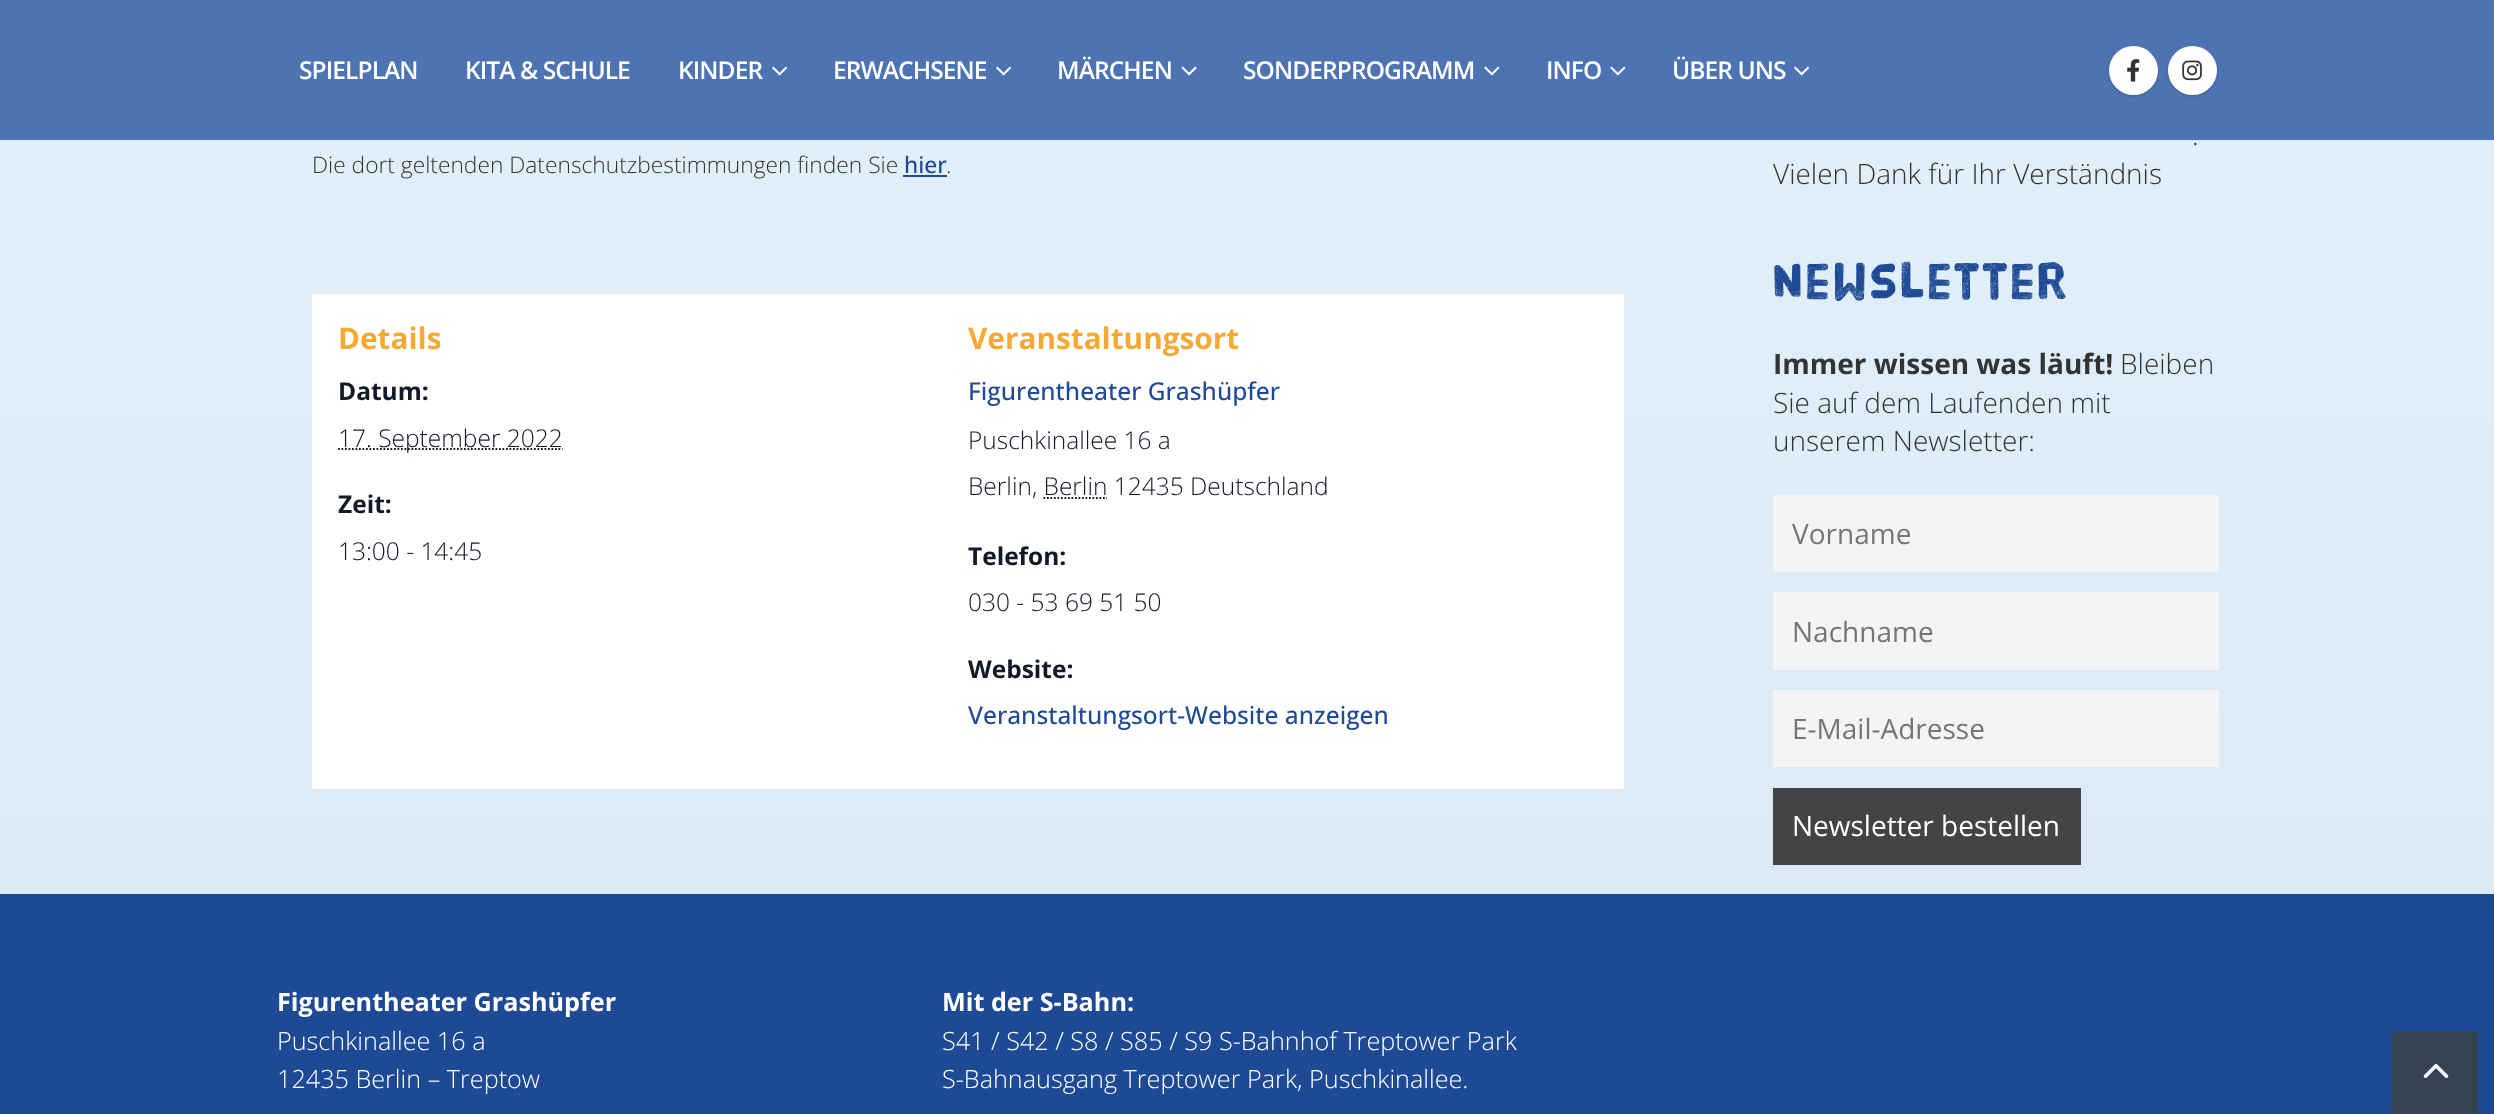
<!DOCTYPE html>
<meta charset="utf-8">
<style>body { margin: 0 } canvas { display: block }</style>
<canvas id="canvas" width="2494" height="1114"></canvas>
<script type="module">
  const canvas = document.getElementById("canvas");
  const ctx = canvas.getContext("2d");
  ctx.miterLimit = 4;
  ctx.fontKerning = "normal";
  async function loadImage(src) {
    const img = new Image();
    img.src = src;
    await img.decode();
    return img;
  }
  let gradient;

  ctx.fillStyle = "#ffffff";
  ctx.fillRect(0, 0, 2494, 1114);
  gradient = ctx.createLinearGradient(1248, -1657, 1248, 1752);
  gradient.addColorStop(0, "#eef8ff");
  gradient.addColorStop(1, "#d4e7f3");
  ctx.fillStyle = gradient;
  ctx.fillRect(0, 140, 2494, 754);
  ctx.fillStyle = "rgba(0, 0, 0, 0.06)";
  ctx.filter = "blur(2.5px)";
  ctx.beginPath();
  ctx.rect(0, 0, 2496, 140);
  ctx.fill();
  ctx.filter = "none";
  ctx.fillStyle = "#4e73b3";
  ctx.fillRect(0, 0, 2494, 140);
  ctx.letterSpacing = "-0.9px";
  ctx.font = "600 24.5px Open Sans";
  ctx.fillStyle = "#ffffff";
  ctx.fillText("SPIELPLAN", 299, 79);
  ctx.fillText("KITA & SCHULE", 465, 79);
  ctx.fillText("KINDER", 678, 79);
  ctx.drawImage(await loadImage("img1.png"), 772, 66, 16, 10);
  ctx.fillText("ERWACHSENE", 833, 79);
  ctx.drawImage(await loadImage("img1.png"), 996, 66, 16, 10);
  ctx.fillText("MÄRCHEN", 1057, 79);
  ctx.drawImage(await loadImage("img2.png"), 1181, 66, 16, 10);
  ctx.fillText("SONDERPROGRAMM", 1243, 79);
  ctx.drawImage(await loadImage("img3.png"), 1484, 66, 16, 10);
  ctx.fillText("INFO", 1546, 79);
  ctx.drawImage(await loadImage("img3.png"), 1610, 66, 16, 10);
  ctx.fillText("ÜBER UNS", 1672, 79);
  ctx.drawImage(await loadImage("img1.png"), 1794, 66, 16, 10);
  ctx.fillStyle = "rgba(0, 0, 0, 0.2)";
  ctx.filter = "blur(1px)";
  ctx.beginPath();
  ctx.roundRect(2109, 47, 49, 49, 24.5);
  ctx.fill();
  ctx.filter = "none";
  ctx.fillStyle = "#ffffff";
  ctx.beginPath();
  ctx.arc(2133.5, 70.5, 24.5, 0, Math.PI * 2);
  ctx.fill();
  ctx.drawImage(await loadImage("img4.png"), 2127, 59, 13, 23);
  ctx.fillStyle = "rgba(0, 0, 0, 0.2)";
  ctx.filter = "blur(1px)";
  ctx.beginPath();
  ctx.roundRect(2168, 47, 49, 49, 24.5);
  ctx.fill();
  ctx.filter = "none";
  ctx.fillStyle = "#ffffff";
  ctx.beginPath();
  ctx.arc(2192.5, 70.5, 24.5, 0, Math.PI * 2);
  ctx.fill();
  ctx.drawImage(await loadImage("img5.png"), 2182, 60, 20, 21);
  ctx.letterSpacing = "0px";
  ctx.font = "300 22.75px Open Sans";
  ctx.fillStyle = "#333333";
  ctx.fillText("Die dort geltenden Datenschutzbestimmungen finden Sie", 312, 173);
  ctx.font = "500 22.75px Open Sans";
  ctx.fillStyle = "#1e4994";
  ctx.fillText("hier", 904, 173);
  ctx.fillRect(903, 175, 44, 2);
  ctx.font = "300 22.75px Open Sans";
  ctx.fillStyle = "#333333";
  ctx.fillText(".", 946, 173);
  ctx.fillStyle = "#ffffff";
  ctx.fillRect(312, 294, 1312, 495);
  ctx.font = "bold 29.75px Open Sans";
  ctx.fillStyle = "#f6a932";
  ctx.fillText("Details", 338, 349);
  ctx.font = "bold 24.5px Open Sans";
  ctx.fillStyle = "#141827";
  ctx.fillText("Datum:", 338, 400);
  ctx.beginPath();
  ctx.moveTo(338, 449);
  ctx.lineTo(562.5, 449);
  ctx.strokeStyle = "#141827";
  ctx.lineWidth = 1.8;
  ctx.setLineDash([1.75, 1.75]);
  ctx.stroke();
  ctx.font = "300 24.5px Open Sans";
  ctx.fillText("17. September 2022", 338, 447);
  ctx.font = "bold 24.5px Open Sans";
  ctx.fillText("Zeit:", 338, 513);
  ctx.font = "300 24.5px Open Sans";
  ctx.fillText("13:00 - 14:45", 338, 560);
  ctx.font = "bold 29.75px Open Sans";
  ctx.fillStyle = "#f6a932";
  ctx.fillText("Veranstaltungsort", 968, 349);
  ctx.font = "500 24.5px Open Sans";
  ctx.fillStyle = "#1e4994";
  ctx.fillText("Figurentheater Grashüpfer", 968, 400);
  ctx.font = "300 24.5px Open Sans";
  ctx.fillStyle = "#141827";
  ctx.fillText("Puschkinallee 16 a", 968, 449);
  ctx.fillText("Berlin, Berlin 12435 Deutschland", 968, 495);
  ctx.beginPath();
  ctx.moveTo(1043.5, 498);
  ctx.lineTo(1107, 498);
  ctx.stroke();
  ctx.font = "bold 24.5px Open Sans";
  ctx.fillText("Telefon:", 968, 565);
  ctx.font = "300 24.5px Open Sans";
  ctx.fillText("030 - 53 69 51 50", 968, 611);
  ctx.font = "bold 24.5px Open Sans";
  ctx.fillText("Website:", 968, 678);
  ctx.font = "500 24.5px Open Sans";
  ctx.fillStyle = "#1e4994";
  ctx.fillText("Veranstaltungsort-Website anzeigen", 968, 724);
  ctx.font = "300 28px Open Sans";
  ctx.fillStyle = "#333333";
  ctx.fillText(".", 2192, 145);
  ctx.fillText("Vielen Dank für Ihr Verständnis", 1773, 184);
  ctx.letterSpacing = "1.75px";
  ctx.font = "52.5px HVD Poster";
  ctx.fillStyle = "#1e4994";
  ctx.fillText("Newsletter", 1773, 299);
  ctx.letterSpacing = "0px";
  ctx.font = "bold 28px Open Sans";
  ctx.fillStyle = "#333333";
  ctx.fillText("Immer wissen was läuft!", 1773, 374);
  ctx.font = "300 28px Open Sans";
  ctx.fillText("Bleiben", 2120, 374);
  ctx.fillText("Sie auf dem Laufenden mit", 1773, 413);
  ctx.fillText("unserem Newsletter:", 1773, 451);
  ctx.fillStyle = "#f4f4f4";
  ctx.fillRect(1773, 495, 446, 77);
  ctx.font = "28px Open Sans";
  ctx.fillStyle = "#757575";
  ctx.fillText("Vorname", 1792, 544);
  ctx.fillStyle = "#f4f4f4";
  ctx.fillRect(1773, 592, 446, 78);
  ctx.fillStyle = "#757575";
  ctx.fillText("Nachname", 1792, 642);
  ctx.fillStyle = "#f4f4f4";
  ctx.fillRect(1773, 690, 446, 77);
  ctx.fillStyle = "#757575";
  ctx.fillText("E-Mail-Adresse", 1792, 739);
  ctx.fillStyle = "#444444";
  ctx.fillRect(1773, 788, 308, 77);
  ctx.fillStyle = "#ffffff";
  ctx.fillText("Newsletter bestellen", 1792, 836);
  ctx.fillStyle = "#1e4994";
  ctx.fillRect(0, 894, 2494, 220);
  ctx.font = "bold 25.2px Open Sans";
  ctx.fillStyle = "#ffffff";
  ctx.fillText("Figurentheater Grashüpfer", 277, 1011);
  ctx.font = "300 25.2px Open Sans";
  ctx.fillText("Puschkinallee 16 a", 277, 1050);
  ctx.fillText("12435 Berlin – Treptow", 277, 1088);
  ctx.font = "bold 25.2px Open Sans";
  ctx.fillText("Mit der S-Bahn:", 942, 1011);
  ctx.font = "300 25.2px Open Sans";
  ctx.fillText("S41 / S42 / S8 / S85 / S9 S-Bahnhof Treptower Park", 942, 1050);
  ctx.fillText("S-Bahnausgang Treptower Park, Puschkinallee.", 942, 1088);
  ctx.fillStyle = "#384255";
  ctx.fillRect(2392, 1031, 86, 83);
  ctx.drawImage(await loadImage("img6.png"), 2423, 1064, 26, 14);
</script>
